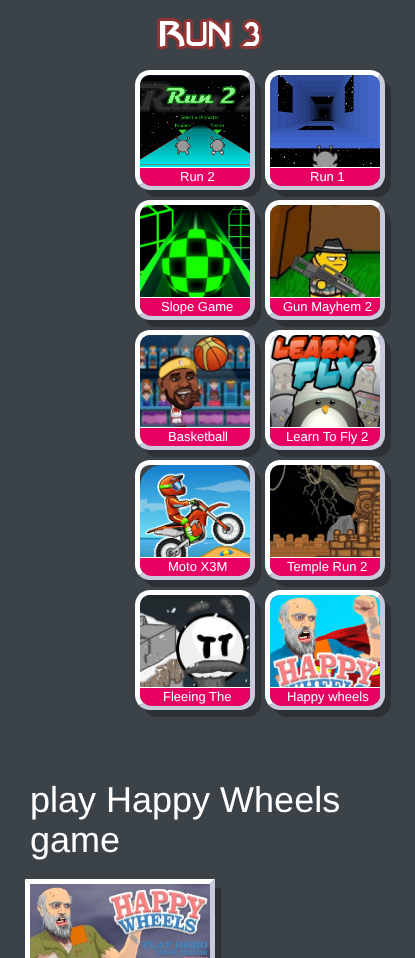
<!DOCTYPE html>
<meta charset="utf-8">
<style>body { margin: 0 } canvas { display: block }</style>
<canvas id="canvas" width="415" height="958"></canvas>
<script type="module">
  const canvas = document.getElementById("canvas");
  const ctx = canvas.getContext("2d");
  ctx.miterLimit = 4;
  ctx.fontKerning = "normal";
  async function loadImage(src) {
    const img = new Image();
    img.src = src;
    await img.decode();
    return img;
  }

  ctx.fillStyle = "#3b4248";
  ctx.fillRect(0, 0, 415, 958);
  ctx.drawImage(await loadImage("img1.png"), 157, 18, 106, 32);
  ctx.fillStyle = "rgba(0, 0, 0, 0.25)";
  ctx.filter = "blur(0.5px)";
  ctx.beginPath();
  ctx.roundRect(143, 79, 118, 118, 14);
  ctx.fill();
  ctx.filter = "none";
  ctx.beginPath();
  ctx.moveTo(249, 76);
  ctx.bezierCurveTo(251, 78.5, 252.5, 81.5, 252.5, 85);
  ctx.lineTo(252.5, 175);
  ctx.bezierCurveTo(252.5, 178.5, 251, 181.5, 249, 184);
  ctx.bezierCurveTo(246.5, 186, 243.5, 187.5, 240, 187.5);
  ctx.lineTo(150, 187.5);
  ctx.bezierCurveTo(146.5, 187.5, 143.5, 186, 141, 184);
  ctx.strokeStyle = "#c9c9dd";
  ctx.lineWidth = 5;
  ctx.stroke();
  ctx.beginPath();
  ctx.moveTo(141, 184);
  ctx.bezierCurveTo(139, 181.5, 137.5, 178.5, 137.5, 175);
  ctx.lineTo(137.5, 85);
  ctx.bezierCurveTo(137.5, 81.5, 139, 78.5, 141, 76);
  ctx.bezierCurveTo(143.5, 74, 146.5, 72.5, 150, 72.5);
  ctx.lineTo(240, 72.5);
  ctx.bezierCurveTo(243.5, 72.5, 246.5, 74, 249, 76);
  ctx.strokeStyle = "#ffffff";
  ctx.stroke();
  ctx.drawImage(await loadImage("img2.png"), 140, 75, 110, 110);
  ctx.fillStyle = "#e70062";
  ctx.beginPath();
  ctx.roundRect(140, 167, 110, 19, [0, 0, 12, 12]);
  ctx.fill();
  ctx.fillStyle = "#ffffff";
  ctx.fillRect(140, 167, 110, 1);
  ctx.font = "13px Liberation Sans";
  ctx.fillText("Run 2", 180, 181);
  ctx.fillStyle = "rgba(0, 0, 0, 0.25)";
  ctx.filter = "blur(0.5px)";
  ctx.beginPath();
  ctx.roundRect(273, 79, 118, 118, 14);
  ctx.fill();
  ctx.filter = "none";
  ctx.beginPath();
  ctx.moveTo(379, 76);
  ctx.bezierCurveTo(381, 78.5, 382.5, 81.5, 382.5, 85);
  ctx.lineTo(382.5, 175);
  ctx.bezierCurveTo(382.5, 178.5, 381, 181.5, 379, 184);
  ctx.bezierCurveTo(376.5, 186, 373.5, 187.5, 370, 187.5);
  ctx.lineTo(280, 187.5);
  ctx.bezierCurveTo(276.5, 187.5, 273.5, 186, 271, 184);
  ctx.strokeStyle = "#c9c9dd";
  ctx.stroke();
  ctx.beginPath();
  ctx.moveTo(271, 184);
  ctx.bezierCurveTo(269, 181.5, 267.5, 178.5, 267.5, 175);
  ctx.lineTo(267.5, 85);
  ctx.bezierCurveTo(267.5, 81.5, 269, 78.5, 271, 76);
  ctx.bezierCurveTo(273.5, 74, 276.5, 72.5, 280, 72.5);
  ctx.lineTo(370, 72.5);
  ctx.bezierCurveTo(373.5, 72.5, 376.5, 74, 379, 76);
  ctx.strokeStyle = "#ffffff";
  ctx.stroke();
  ctx.drawImage(await loadImage("img3.png"), 270, 75, 110, 110);
  ctx.fillStyle = "#e70062";
  ctx.beginPath();
  ctx.roundRect(270, 167, 110, 19, [0, 0, 12, 12]);
  ctx.fill();
  ctx.fillStyle = "#ffffff";
  ctx.fillRect(270, 167, 110, 1);
  ctx.fillText("Run 1", 310, 181);
  ctx.fillStyle = "rgba(0, 0, 0, 0.25)";
  ctx.filter = "blur(0.5px)";
  ctx.beginPath();
  ctx.roundRect(143, 209, 118, 118, 14);
  ctx.fill();
  ctx.filter = "none";
  ctx.beginPath();
  ctx.moveTo(249, 206);
  ctx.bezierCurveTo(251, 208.5, 252.5, 211.5, 252.5, 215);
  ctx.lineTo(252.5, 305);
  ctx.bezierCurveTo(252.5, 308.5, 251, 311.5, 249, 314);
  ctx.bezierCurveTo(246.5, 316, 243.5, 317.5, 240, 317.5);
  ctx.lineTo(150, 317.5);
  ctx.bezierCurveTo(146.5, 317.5, 143.5, 316, 141, 314);
  ctx.strokeStyle = "#c9c9dd";
  ctx.stroke();
  ctx.beginPath();
  ctx.moveTo(141, 314);
  ctx.bezierCurveTo(139, 311.5, 137.5, 308.5, 137.5, 305);
  ctx.lineTo(137.5, 215);
  ctx.bezierCurveTo(137.5, 211.5, 139, 208.5, 141, 206);
  ctx.bezierCurveTo(143.5, 204, 146.5, 202.5, 150, 202.5);
  ctx.lineTo(240, 202.5);
  ctx.bezierCurveTo(243.5, 202.5, 246.5, 204, 249, 206);
  ctx.strokeStyle = "#ffffff";
  ctx.stroke();
  ctx.drawImage(await loadImage("img4.png"), 140, 205, 110, 110);
  ctx.fillStyle = "#e70062";
  ctx.beginPath();
  ctx.roundRect(140, 297, 110, 19, [0, 0, 12, 12]);
  ctx.fill();
  ctx.fillStyle = "#ffffff";
  ctx.fillRect(140, 297, 110, 1);
  ctx.fillText("Slope Game", 161, 311);
  ctx.fillStyle = "rgba(0, 0, 0, 0.25)";
  ctx.filter = "blur(0.5px)";
  ctx.beginPath();
  ctx.roundRect(273, 209, 118, 118, 14);
  ctx.fill();
  ctx.filter = "none";
  ctx.beginPath();
  ctx.moveTo(379, 206);
  ctx.bezierCurveTo(381, 208.5, 382.5, 211.5, 382.5, 215);
  ctx.lineTo(382.5, 305);
  ctx.bezierCurveTo(382.5, 308.5, 381, 311.5, 379, 314);
  ctx.bezierCurveTo(376.5, 316, 373.5, 317.5, 370, 317.5);
  ctx.lineTo(280, 317.5);
  ctx.bezierCurveTo(276.5, 317.5, 273.5, 316, 271, 314);
  ctx.strokeStyle = "#c9c9dd";
  ctx.stroke();
  ctx.beginPath();
  ctx.moveTo(271, 314);
  ctx.bezierCurveTo(269, 311.5, 267.5, 308.5, 267.5, 305);
  ctx.lineTo(267.5, 215);
  ctx.bezierCurveTo(267.5, 211.5, 269, 208.5, 271, 206);
  ctx.bezierCurveTo(273.5, 204, 276.5, 202.5, 280, 202.5);
  ctx.lineTo(370, 202.5);
  ctx.bezierCurveTo(373.5, 202.5, 376.5, 204, 379, 206);
  ctx.strokeStyle = "#ffffff";
  ctx.stroke();
  ctx.drawImage(await loadImage("img5.png"), 270, 205, 110, 110);
  ctx.fillStyle = "#e70062";
  ctx.beginPath();
  ctx.roundRect(270, 297, 110, 19, [0, 0, 12, 12]);
  ctx.fill();
  ctx.fillStyle = "#ffffff";
  ctx.fillRect(270, 297, 110, 1);
  ctx.fillText("Gun Mayhem 2", 283, 311);
  ctx.fillStyle = "rgba(0, 0, 0, 0.25)";
  ctx.filter = "blur(0.5px)";
  ctx.beginPath();
  ctx.roundRect(143, 339, 118, 118, 14);
  ctx.fill();
  ctx.filter = "none";
  ctx.beginPath();
  ctx.moveTo(249, 336);
  ctx.bezierCurveTo(251, 338.5, 252.5, 341.5, 252.5, 345);
  ctx.lineTo(252.5, 435);
  ctx.bezierCurveTo(252.5, 438.5, 251, 441.5, 249, 444);
  ctx.bezierCurveTo(246.5, 446, 243.5, 447.5, 240, 447.5);
  ctx.lineTo(150, 447.5);
  ctx.bezierCurveTo(146.5, 447.5, 143.5, 446, 141, 444);
  ctx.strokeStyle = "#c9c9dd";
  ctx.stroke();
  ctx.beginPath();
  ctx.moveTo(141, 444);
  ctx.bezierCurveTo(139, 441.5, 137.5, 438.5, 137.5, 435);
  ctx.lineTo(137.5, 345);
  ctx.bezierCurveTo(137.5, 341.5, 139, 338.5, 141, 336);
  ctx.bezierCurveTo(143.5, 334, 146.5, 332.5, 150, 332.5);
  ctx.lineTo(240, 332.5);
  ctx.bezierCurveTo(243.5, 332.5, 246.5, 334, 249, 336);
  ctx.strokeStyle = "#ffffff";
  ctx.stroke();
  ctx.drawImage(await loadImage("img6.png"), 140, 335, 110, 110);
  ctx.fillStyle = "#e70062";
  ctx.beginPath();
  ctx.roundRect(140, 427, 110, 19, [0, 0, 12, 12]);
  ctx.fill();
  ctx.fillStyle = "#ffffff";
  ctx.fillRect(140, 427, 110, 1);
  ctx.fillText("Basketball", 168, 441);
  ctx.fillStyle = "rgba(0, 0, 0, 0.25)";
  ctx.filter = "blur(0.5px)";
  ctx.beginPath();
  ctx.roundRect(273, 339, 118, 118, 14);
  ctx.fill();
  ctx.filter = "none";
  ctx.beginPath();
  ctx.moveTo(379, 336);
  ctx.bezierCurveTo(381, 338.5, 382.5, 341.5, 382.5, 345);
  ctx.lineTo(382.5, 435);
  ctx.bezierCurveTo(382.5, 438.5, 381, 441.5, 379, 444);
  ctx.bezierCurveTo(376.5, 446, 373.5, 447.5, 370, 447.5);
  ctx.lineTo(280, 447.5);
  ctx.bezierCurveTo(276.5, 447.5, 273.5, 446, 271, 444);
  ctx.strokeStyle = "#c9c9dd";
  ctx.stroke();
  ctx.beginPath();
  ctx.moveTo(271, 444);
  ctx.bezierCurveTo(269, 441.5, 267.5, 438.5, 267.5, 435);
  ctx.lineTo(267.5, 345);
  ctx.bezierCurveTo(267.5, 341.5, 269, 338.5, 271, 336);
  ctx.bezierCurveTo(273.5, 334, 276.5, 332.5, 280, 332.5);
  ctx.lineTo(370, 332.5);
  ctx.bezierCurveTo(373.5, 332.5, 376.5, 334, 379, 336);
  ctx.strokeStyle = "#ffffff";
  ctx.stroke();
  ctx.drawImage(await loadImage("img7.png"), 270, 335, 110, 110);
  ctx.fillStyle = "#e70062";
  ctx.beginPath();
  ctx.roundRect(270, 427, 110, 19, [0, 0, 12, 12]);
  ctx.fill();
  ctx.fillStyle = "#ffffff";
  ctx.fillRect(270, 427, 110, 1);
  ctx.fillText("Learn To Fly 2", 286, 441);
  ctx.save();
  ctx.beginPath();
  ctx.moveTo(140, 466);
  ctx.lineTo(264, 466);
  ctx.lineTo(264, 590);
  ctx.lineTo(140, 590);
  ctx.closePath();
  ctx.moveTo(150, 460);
  ctx.lineTo(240, 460);
  ctx.bezierCurveTo(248.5, 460, 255, 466.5, 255, 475);
  ctx.lineTo(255, 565);
  ctx.bezierCurveTo(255, 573.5, 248.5, 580, 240, 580);
  ctx.lineTo(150, 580);
  ctx.bezierCurveTo(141.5, 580, 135, 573.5, 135, 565);
  ctx.lineTo(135, 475);
  ctx.bezierCurveTo(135, 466.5, 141.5, 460, 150, 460);
  ctx.closePath();
  ctx.clip("evenodd");
  ctx.fillStyle = "rgba(0, 0, 0, 0.25)";
  ctx.filter = "blur(0.5px)";
  ctx.beginPath();
  ctx.roundRect(143, 469, 118, 118, 14);
  ctx.fill();
  ctx.filter = "none";
  ctx.restore();
  ctx.beginPath();
  ctx.moveTo(249, 466);
  ctx.bezierCurveTo(251, 468.5, 252.5, 471.5, 252.5, 475);
  ctx.lineTo(252.5, 565);
  ctx.bezierCurveTo(252.5, 568.5, 251, 571.5, 249, 574);
  ctx.bezierCurveTo(246.5, 576, 243.5, 577.5, 240, 577.5);
  ctx.lineTo(150, 577.5);
  ctx.bezierCurveTo(146.5, 577.5, 143.5, 576, 141, 574);
  ctx.strokeStyle = "#c9c9dd";
  ctx.stroke();
  ctx.beginPath();
  ctx.moveTo(141, 574);
  ctx.bezierCurveTo(139, 571.5, 137.5, 568.5, 137.5, 565);
  ctx.lineTo(137.5, 475);
  ctx.bezierCurveTo(137.5, 471.5, 139, 468.5, 141, 466);
  ctx.bezierCurveTo(143.5, 464, 146.5, 462.5, 150, 462.5);
  ctx.lineTo(240, 462.5);
  ctx.bezierCurveTo(243.5, 462.5, 246.5, 464, 249, 466);
  ctx.strokeStyle = "#ffffff";
  ctx.stroke();
  ctx.drawImage(await loadImage("img8.png"), 140, 465, 110, 92);
  ctx.fillStyle = "#e70062";
  ctx.beginPath();
  ctx.roundRect(140, 557, 110, 19, [0, 0, 12, 12]);
  ctx.fill();
  ctx.fillStyle = "#ffffff";
  ctx.fillRect(140, 557, 110, 1);
  ctx.fillText("Moto X3M", 168, 571);
  ctx.fillStyle = "rgba(0, 0, 0, 0.25)";
  ctx.filter = "blur(0.5px)";
  ctx.beginPath();
  ctx.roundRect(273, 469, 118, 118, 14);
  ctx.fill();
  ctx.filter = "none";
  ctx.beginPath();
  ctx.moveTo(379, 466);
  ctx.bezierCurveTo(381, 468.5, 382.5, 471.5, 382.5, 475);
  ctx.lineTo(382.5, 565);
  ctx.bezierCurveTo(382.5, 568.5, 381, 571.5, 379, 574);
  ctx.bezierCurveTo(376.5, 576, 373.5, 577.5, 370, 577.5);
  ctx.lineTo(280, 577.5);
  ctx.bezierCurveTo(276.5, 577.5, 273.5, 576, 271, 574);
  ctx.strokeStyle = "#c9c9dd";
  ctx.stroke();
  ctx.beginPath();
  ctx.moveTo(271, 574);
  ctx.bezierCurveTo(269, 571.5, 267.5, 568.5, 267.5, 565);
  ctx.lineTo(267.5, 475);
  ctx.bezierCurveTo(267.5, 471.5, 269, 468.5, 271, 466);
  ctx.bezierCurveTo(273.5, 464, 276.5, 462.5, 280, 462.5);
  ctx.lineTo(370, 462.5);
  ctx.bezierCurveTo(373.5, 462.5, 376.5, 464, 379, 466);
  ctx.strokeStyle = "#ffffff";
  ctx.stroke();
  ctx.drawImage(await loadImage("img9.png"), 270, 465, 110, 110);
  ctx.fillStyle = "#e70062";
  ctx.beginPath();
  ctx.roundRect(270, 557, 110, 19, [0, 0, 12, 12]);
  ctx.fill();
  ctx.fillStyle = "#ffffff";
  ctx.fillRect(270, 557, 110, 1);
  ctx.fillText("Temple Run 2", 287, 571);
  ctx.fillStyle = "rgba(0, 0, 0, 0.25)";
  ctx.filter = "blur(0.5px)";
  ctx.beginPath();
  ctx.roundRect(143, 599, 118, 118, 14);
  ctx.fill();
  ctx.filter = "none";
  ctx.beginPath();
  ctx.moveTo(249, 596);
  ctx.bezierCurveTo(251, 598.5, 252.5, 601.5, 252.5, 605);
  ctx.lineTo(252.5, 695);
  ctx.bezierCurveTo(252.5, 698.5, 251, 701.5, 249, 704);
  ctx.bezierCurveTo(246.5, 706, 243.5, 707.5, 240, 707.5);
  ctx.lineTo(150, 707.5);
  ctx.bezierCurveTo(146.5, 707.5, 143.5, 706, 141, 704);
  ctx.strokeStyle = "#c9c9dd";
  ctx.stroke();
  ctx.beginPath();
  ctx.moveTo(141, 704);
  ctx.bezierCurveTo(139, 701.5, 137.5, 698.5, 137.5, 695);
  ctx.lineTo(137.5, 605);
  ctx.bezierCurveTo(137.5, 601.5, 139, 598.5, 141, 596);
  ctx.bezierCurveTo(143.5, 594, 146.5, 592.5, 150, 592.5);
  ctx.lineTo(240, 592.5);
  ctx.bezierCurveTo(243.5, 592.5, 246.5, 594, 249, 596);
  ctx.strokeStyle = "#ffffff";
  ctx.stroke();
  ctx.drawImage(await loadImage("img10.png"), 140, 595, 110, 110);
  ctx.fillStyle = "#e70062";
  ctx.beginPath();
  ctx.roundRect(140, 687, 110, 19, [0, 0, 12, 12]);
  ctx.fill();
  ctx.fillStyle = "#ffffff";
  ctx.fillRect(140, 687, 110, 1);
  ctx.fillText("Fleeing The", 163, 701);
  ctx.fillStyle = "rgba(0, 0, 0, 0.25)";
  ctx.filter = "blur(0.5px)";
  ctx.beginPath();
  ctx.roundRect(273, 599, 118, 118, 14);
  ctx.fill();
  ctx.filter = "none";
  ctx.beginPath();
  ctx.moveTo(379, 596);
  ctx.bezierCurveTo(381, 598.5, 382.5, 601.5, 382.5, 605);
  ctx.lineTo(382.5, 695);
  ctx.bezierCurveTo(382.5, 698.5, 381, 701.5, 379, 704);
  ctx.bezierCurveTo(376.5, 706, 373.5, 707.5, 370, 707.5);
  ctx.lineTo(280, 707.5);
  ctx.bezierCurveTo(276.5, 707.5, 273.5, 706, 271, 704);
  ctx.strokeStyle = "#c9c9dd";
  ctx.stroke();
  ctx.beginPath();
  ctx.moveTo(271, 704);
  ctx.bezierCurveTo(269, 701.5, 267.5, 698.5, 267.5, 695);
  ctx.lineTo(267.5, 605);
  ctx.bezierCurveTo(267.5, 601.5, 269, 598.5, 271, 596);
  ctx.bezierCurveTo(273.5, 594, 276.5, 592.5, 280, 592.5);
  ctx.lineTo(370, 592.5);
  ctx.bezierCurveTo(373.5, 592.5, 376.5, 594, 379, 596);
  ctx.strokeStyle = "#ffffff";
  ctx.stroke();
  ctx.drawImage(await loadImage("img11.png"), 270, 595, 110, 110);
  ctx.fillStyle = "#e70062";
  ctx.beginPath();
  ctx.roundRect(270, 687, 110, 19, [0, 0, 12, 12]);
  ctx.fill();
  ctx.fillStyle = "#ffffff";
  ctx.fillRect(270, 687, 110, 1);
  ctx.fillText("Happy wheels", 287, 701);
  ctx.font = "36px Liberation Sans";
  ctx.fillText("play Happy Wheels", 30, 812);
  ctx.fillText("game", 30, 852);
  ctx.beginPath();
  ctx.moveTo(25, 879);
  ctx.lineTo(215, 879);
  ctx.lineTo(210, 884);
  ctx.lineTo(30, 884);
  ctx.closePath();
  ctx.fill();
  ctx.beginPath();
  ctx.moveTo(25, 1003);
  ctx.lineTo(25, 879);
  ctx.lineTo(30, 884);
  ctx.lineTo(30, 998);
  ctx.closePath();
  ctx.fill();
  ctx.fillStyle = "rgba(0, 0, 0, 0.25)";
  ctx.filter = "blur(0.5px)";
  ctx.beginPath();
  ctx.rect(33, 888, 188, 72);
  ctx.fill();
  ctx.filter = "none";
  ctx.drawImage(await loadImage("img12.png"), 30, 884, 180, 74);
  ctx.fillStyle = "#c9c9dd";
  ctx.beginPath();
  ctx.moveTo(215, 879);
  ctx.lineTo(215, 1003);
  ctx.lineTo(210, 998);
  ctx.lineTo(210, 884);
  ctx.closePath();
  ctx.fill();
</script>
